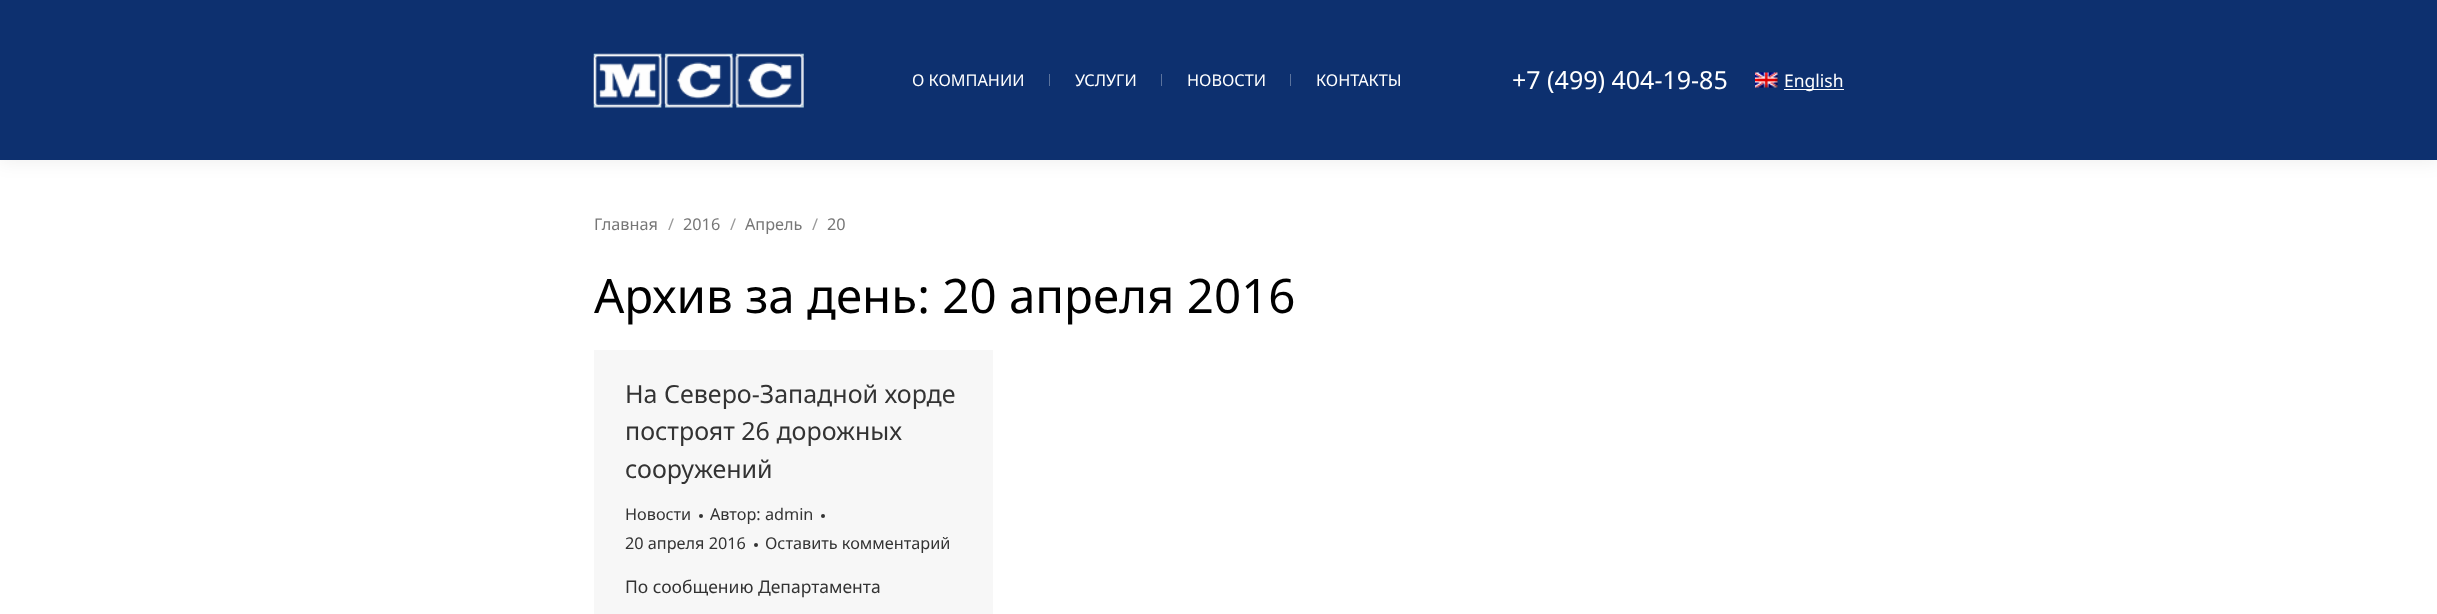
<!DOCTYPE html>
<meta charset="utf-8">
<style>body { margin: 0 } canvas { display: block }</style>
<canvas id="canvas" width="2437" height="614"></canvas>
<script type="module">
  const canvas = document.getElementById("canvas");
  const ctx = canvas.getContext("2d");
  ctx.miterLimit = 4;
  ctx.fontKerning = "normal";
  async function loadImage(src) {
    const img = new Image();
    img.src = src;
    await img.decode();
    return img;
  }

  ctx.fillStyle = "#ffffff";
  ctx.fillRect(0, 0, 2437, 614);
  ctx.fillStyle = "rgba(0, 0, 0, 0.07)";
  ctx.filter = "blur(9.5px)";
  ctx.beginPath();
  ctx.rect(-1, -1, 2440, 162);
  ctx.fill();
  ctx.filter = "none";
  ctx.fillStyle = "#0d306f";
  ctx.fillRect(0, 0, 2437, 160);
  ctx.drawImage(await loadImage("img1.png"), 593, 53, 211, 55);
  ctx.font = "16.25px Noto Sans";
  ctx.fillStyle = "#ffffff";
  ctx.fillText("О КОМПАНИИ", 912, 86);
  ctx.fillStyle = "#5b739d";
  ctx.fillRect(1049, 74, 1, 12);
  ctx.fillStyle = "#ffffff";
  ctx.fillText("УСЛУГИ", 1075, 86);
  ctx.fillStyle = "#5b739d";
  ctx.fillRect(1161, 74, 1, 12);
  ctx.fillStyle = "#ffffff";
  ctx.fillText("НОВОСТИ", 1187, 86);
  ctx.fillStyle = "#5b739d";
  ctx.fillRect(1290, 74, 1, 12);
  ctx.fillStyle = "#ffffff";
  ctx.fillText("КОНТАКТЫ", 1316, 86);
  ctx.font = "25px Noto Sans";
  ctx.fillText("+7 (499) 404-19-85", 1512, 89);
  ctx.drawImage(await loadImage("img2.png"), 1755, 72, 23, 16);
  ctx.fillRect(1784, 89, 60, 1);
  ctx.font = "17.5px Noto Sans";
  ctx.fillText("English", 1784, 87);
  ctx.font = "16.25px Noto Sans";
  ctx.fillStyle = "#777777";
  ctx.fillText("Главная", 594, 230);
  ctx.fillStyle = "#999999";
  ctx.fillText("/", 668, 230);
  ctx.fillStyle = "#777777";
  ctx.fillText("2016", 683, 230);
  ctx.fillStyle = "#999999";
  ctx.fillText("/", 730, 230);
  ctx.fillStyle = "#777777";
  ctx.fillText("Апрель", 745, 230);
  ctx.fillStyle = "#999999";
  ctx.fillText("/", 812, 230);
  ctx.fillStyle = "#777777";
  ctx.fillText("20", 827, 230);
  ctx.font = "47.5px Noto Sans";
  ctx.fillStyle = "#000000";
  ctx.fillText("Архив за день: 20 апреля 2016", 594, 313);
  ctx.fillStyle = "#f7f7f7";
  ctx.fillRect(594, 350, 399, 264);
  ctx.font = "25px Noto Sans";
  ctx.fillStyle = "#333333";
  ctx.fillText("На Северо-Западной хорде", 625, 403);
  ctx.fillText("построят 26 дорожных", 625, 440);
  ctx.fillText("сооружений", 625, 478);
  ctx.font = "16.25px Noto Sans";
  ctx.fillText("Новости", 625, 520);
  ctx.beginPath();
  ctx.arc(701, 516, 2, 0, Math.PI * 2);
  ctx.fill();
  ctx.fillText("Автор: admin", 710, 520);
  ctx.beginPath();
  ctx.arc(823, 516, 2, 0, Math.PI * 2);
  ctx.fill();
  ctx.fillText("20 апреля 2016", 625, 549);
  ctx.beginPath();
  ctx.arc(756, 545, 2, 0, Math.PI * 2);
  ctx.fill();
  ctx.fillText("Оставить комментарий", 765, 549);
  ctx.font = "17.5px Noto Sans";
  ctx.fillText("По сообщению Департамента", 625, 593);
</script>
